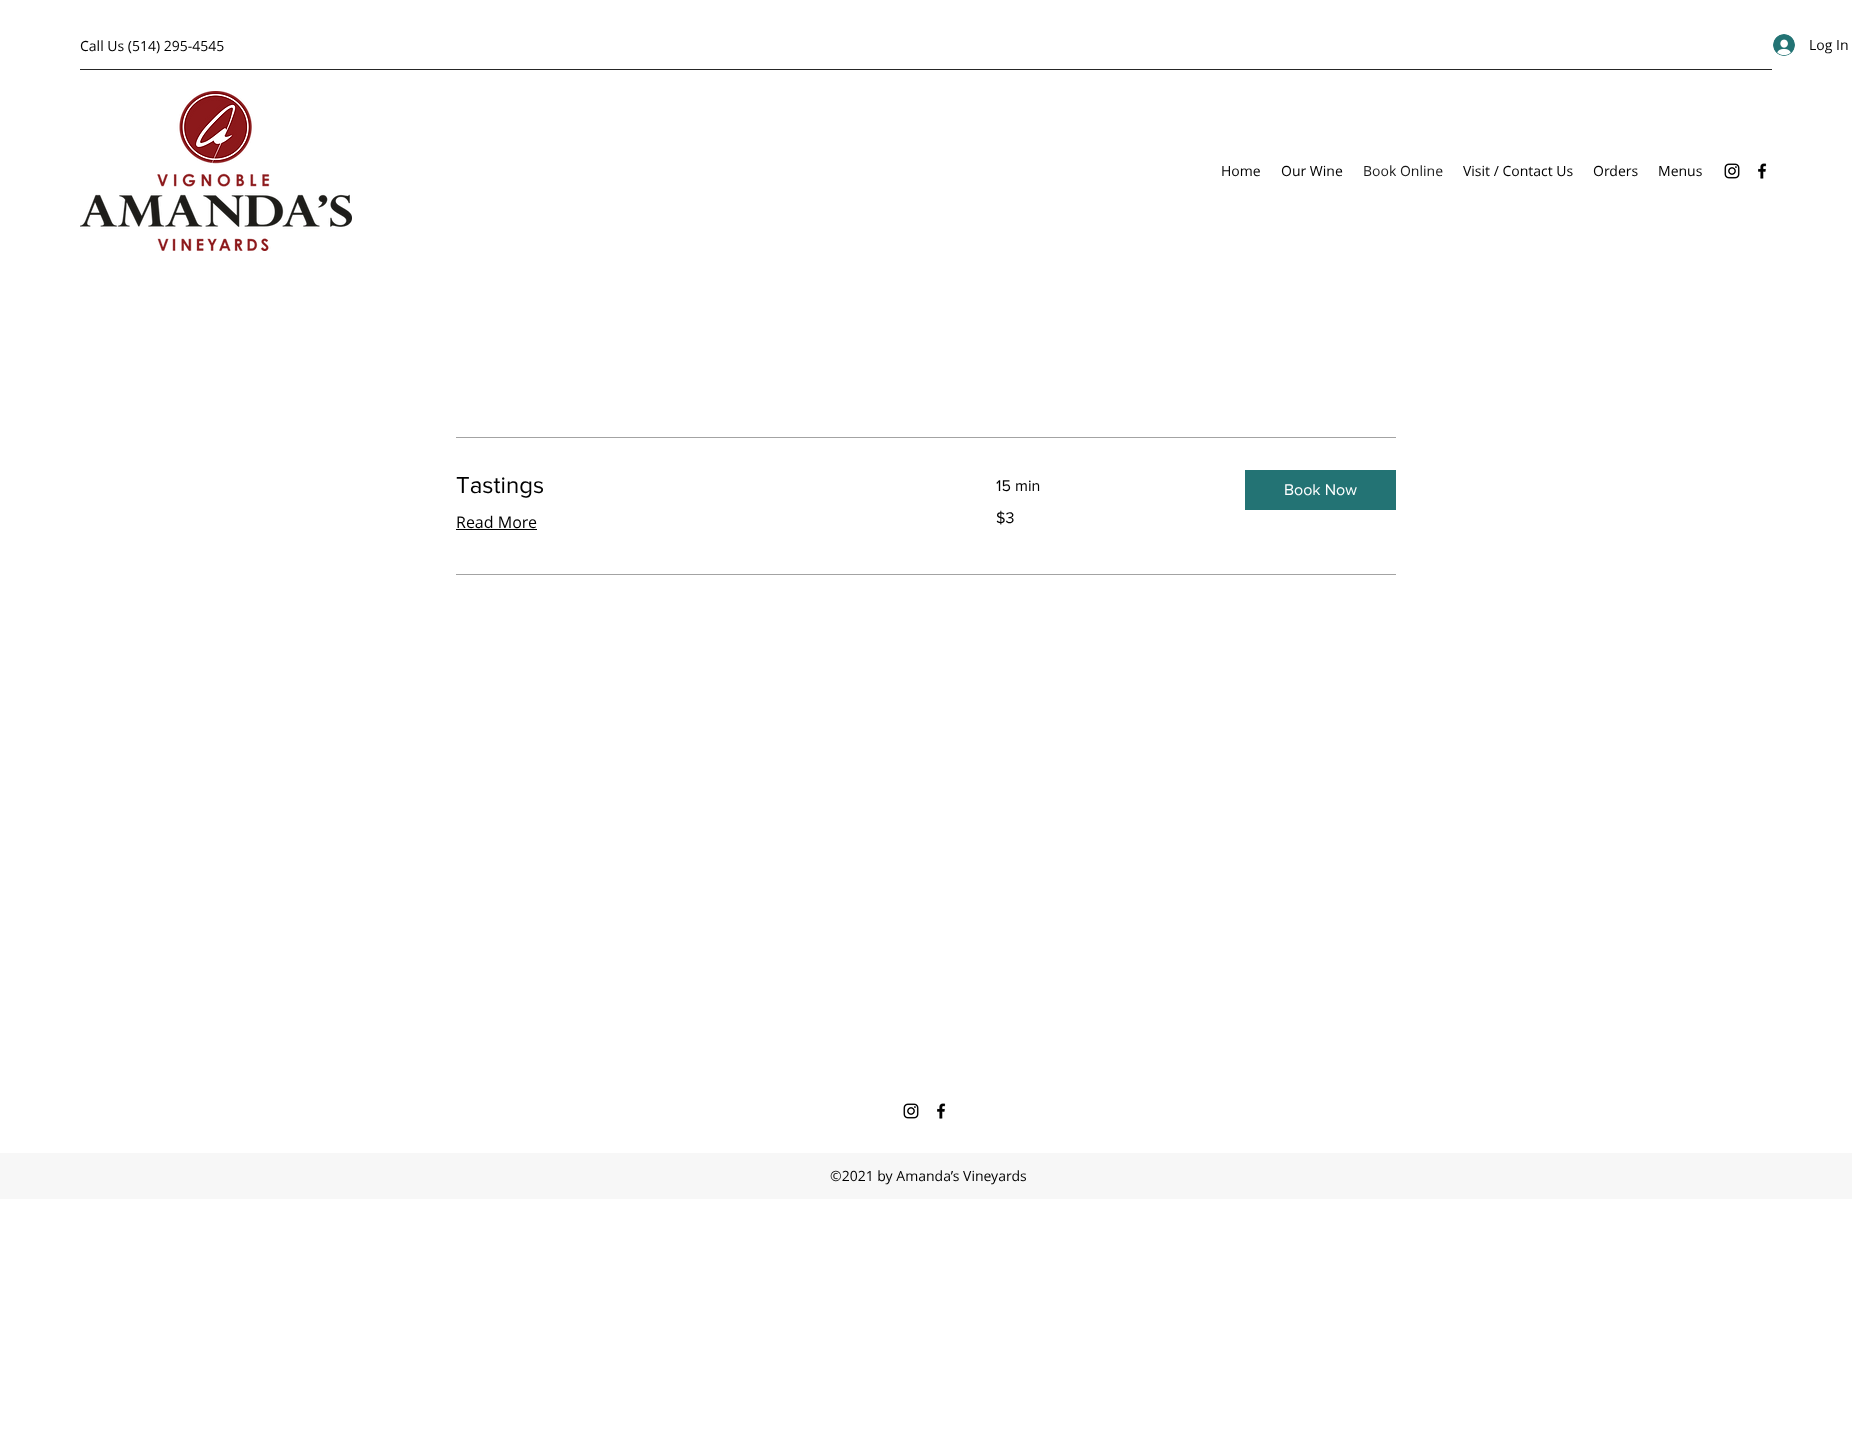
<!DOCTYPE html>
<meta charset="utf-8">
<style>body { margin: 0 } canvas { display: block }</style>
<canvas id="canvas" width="1852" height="1444"></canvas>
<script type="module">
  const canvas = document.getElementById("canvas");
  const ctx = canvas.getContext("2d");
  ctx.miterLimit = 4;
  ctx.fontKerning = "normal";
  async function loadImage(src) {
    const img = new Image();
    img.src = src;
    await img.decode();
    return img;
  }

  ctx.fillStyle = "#ffffff";
  ctx.fillRect(0, 0, 1852, 1444);
  ctx.font = "14px Open Sans";
  ctx.fillStyle = "#000000";
  ctx.fillText("Call Us (514) 295-4545", 80, 51);
  ctx.drawImage(await loadImage("img1.png"), 1773, 34, 22, 22);
  ctx.fillText("Log In", 1809, 50);
  ctx.fillStyle = "#262626";
  ctx.fillRect(80, 69, 1692, 1);
  ctx.drawImage(await loadImage("img2.png"), 80, 91, 272, 160);
  ctx.fillStyle = "#000000";
  ctx.fillText("Home", 1221, 176);
  ctx.fillText("Our Wine", 1281, 176);
  ctx.fillStyle = "#191919";
  ctx.fillText("Book Online", 1363, 176);
  ctx.fillStyle = "#000000";
  ctx.fillText("Visit / Contact Us", 1463, 176);
  ctx.fillText("Orders", 1593, 176);
  ctx.fillText("Menus", 1658, 176);
  ctx.drawImage(await loadImage("img3.png"), 1724, 163, 16, 16);
  ctx.drawImage(await loadImage("img4.png"), 1758, 163, 9, 16);
  ctx.fillStyle = "#a3a3a3";
  ctx.fillRect(456, 437, 940, 1);
  ctx.font = "24px 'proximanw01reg'";
  ctx.fillStyle = "#000000";
  ctx.fillText("Tastings", 456, 493);
  ctx.font = "16px Open Sans";
  ctx.fillText("Read More", 456, 528);
  ctx.fillRect(456, 529, 81, 1);
  ctx.font = "16px 'proximanw01reg'";
  ctx.fillText("15 min", 996, 491);
  ctx.fillText("$3", 996, 523);
  ctx.fillStyle = "#237374";
  ctx.fillRect(1245, 470, 151, 40);
  ctx.fillStyle = "#ffffff";
  ctx.fillText("Book Now", 1284, 495);
  ctx.fillStyle = "#a3a3a3";
  ctx.fillRect(456, 574, 940, 1);
  ctx.drawImage(await loadImage("img3.png"), 903, 1103, 16, 16);
  ctx.drawImage(await loadImage("img4.png"), 937, 1103, 9, 16);
  ctx.fillStyle = "#f7f7f7";
  ctx.fillRect(0, 1153, 1852, 46);
  ctx.font = "14px Open Sans";
  ctx.fillStyle = "#000000";
  ctx.fillText("©2021 by Amanda’s Vineyards", 830, 1181);
</script>
